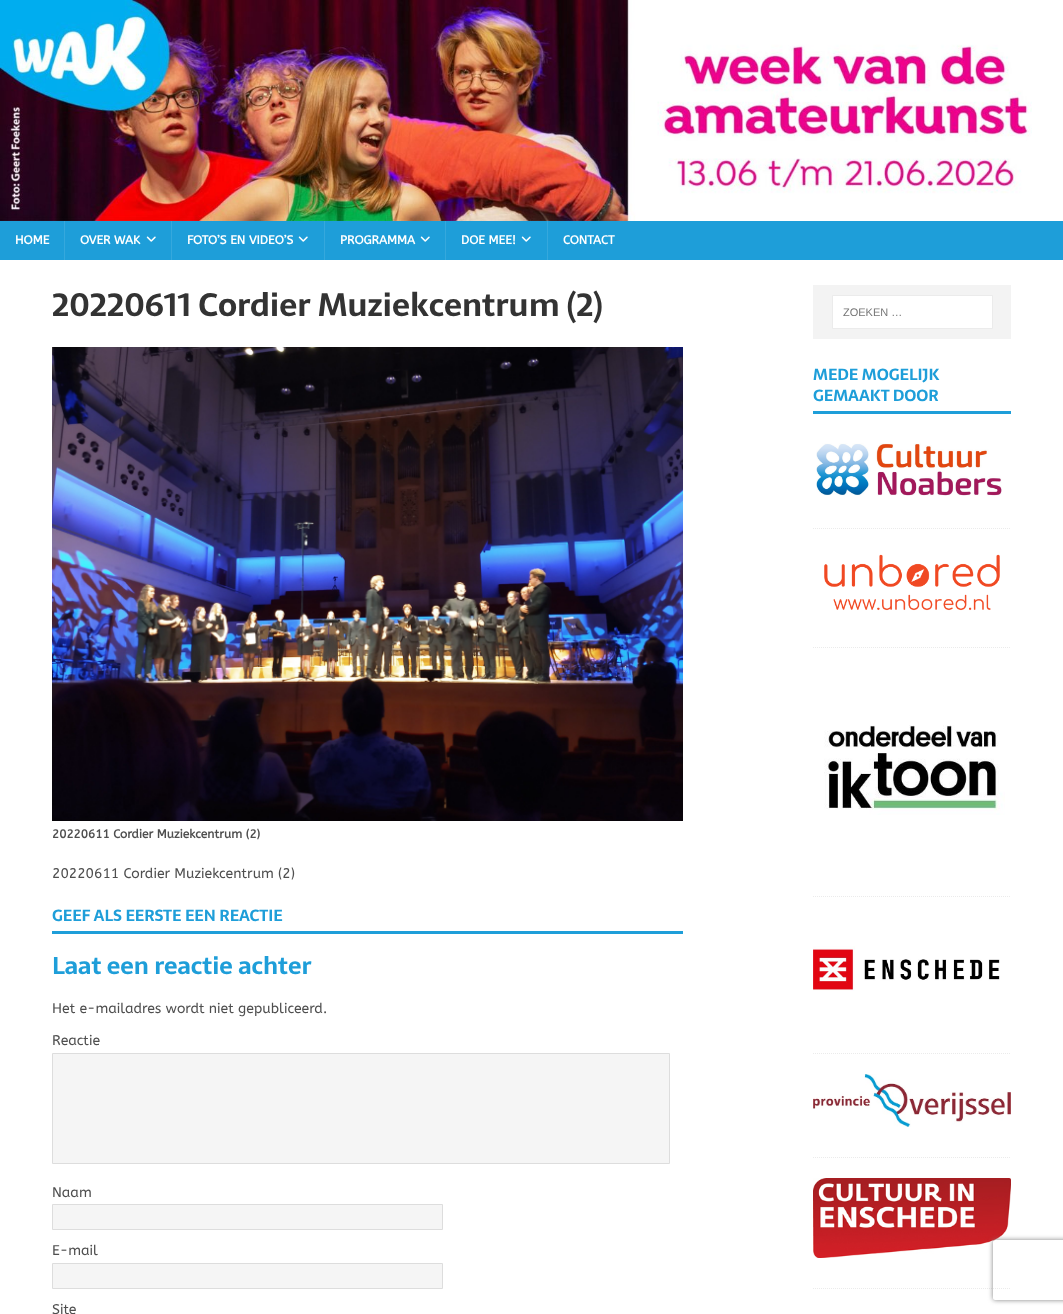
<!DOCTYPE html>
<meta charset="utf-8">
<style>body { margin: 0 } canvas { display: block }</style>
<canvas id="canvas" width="1063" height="1314"></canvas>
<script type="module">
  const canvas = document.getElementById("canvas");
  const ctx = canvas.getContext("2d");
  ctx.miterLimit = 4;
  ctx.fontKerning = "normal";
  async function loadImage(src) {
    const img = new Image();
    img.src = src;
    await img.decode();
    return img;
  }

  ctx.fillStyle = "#ffffff";
  ctx.fillRect(0, 0, 1063, 1314);
  ctx.drawImage(await loadImage("img1.png"), 0, 0, 1032, 221);
  ctx.fillStyle = "#1e9ed9";
  ctx.fillRect(0, 221, 1063, 39);
  ctx.font = "bold 12px ABeeZee";
  ctx.fillStyle = "#ffffff";
  ctx.fillText("HOME", 15, 244);
  ctx.fillStyle = "#35a8dd";
  ctx.fillRect(64, 221, 1, 39);
  ctx.fillStyle = "#ffffff";
  ctx.fillText("OVER WAK", 80, 244);
  ctx.drawImage(await loadImage("img2.png"), 146, 236, 10, 6);
  ctx.fillStyle = "#35a8dd";
  ctx.fillRect(171, 221, 1, 39);
  ctx.fillStyle = "#ffffff";
  ctx.fillText("FOTO’S EN VIDEO’S", 187, 244);
  ctx.drawImage(await loadImage("img2.png"), 298, 236, 10, 6);
  ctx.fillStyle = "#35a8dd";
  ctx.fillRect(324, 221, 1, 39);
  ctx.fillStyle = "#ffffff";
  ctx.fillText("PROGRAMMA", 340, 244);
  ctx.drawImage(await loadImage("img2.png"), 420, 236, 10, 6);
  ctx.fillStyle = "#35a8dd";
  ctx.fillRect(445, 221, 1, 39);
  ctx.fillStyle = "#ffffff";
  ctx.fillText("DOE MEE!", 461, 244);
  ctx.drawImage(await loadImage("img2.png"), 521, 236, 10, 6);
  ctx.fillStyle = "#35a8dd";
  ctx.fillRect(547, 221, 1, 39);
  ctx.fillStyle = "#ffffff";
  ctx.fillText("CONTACT", 563, 244);
  ctx.font = "bold 32px Sarala";
  ctx.fillStyle = "#333333";
  ctx.fillText("20220611 Cordier Muziekcentrum (2)", 52, 316);
  ctx.drawImage(await loadImage("img3.png"), 52, 347, 631, 474);
  ctx.font = "bold 12px ABeeZee";
  ctx.fillStyle = "#4f4f4f";
  ctx.fillText("20220611 Cordier Muziekcentrum (2)", 52, 838);
  ctx.font = "14px ABeeZee";
  ctx.fillText("20220611 Cordier Muziekcentrum (2)", 52, 878);
  ctx.fillStyle = "#1e9ed9";
  ctx.fillRect(52, 931, 631, 3);
  ctx.font = "bold 16px Sarala";
  ctx.fillText("GEEF ALS EERSTE EEN REACTIE", 52, 921);
  ctx.font = "bold 24px Sarala";
  ctx.fillText("Laat een reactie achter", 52, 974);
  ctx.font = "14px ABeeZee";
  ctx.fillStyle = "#4f4f4f";
  ctx.fillText("Het e-mailadres wordt niet gepubliceerd.", 52, 1013);
  ctx.fillText("Reactie", 52, 1045);
  ctx.fillStyle = "#f5f5f5";
  ctx.beginPath();
  ctx.rect(52.5, 1053.5, 617, 110);
  ctx.fill();
  ctx.strokeStyle = "#dddddd";
  ctx.stroke();
  ctx.fillStyle = "#4f4f4f";
  ctx.fillText("Naam", 52, 1197);
  ctx.fillStyle = "#f5f5f5";
  ctx.beginPath();
  ctx.rect(52.5, 1204.5, 390, 25);
  ctx.fill();
  ctx.stroke();
  ctx.fillStyle = "#4f4f4f";
  ctx.fillText("E-mail", 52, 1255);
  ctx.fillStyle = "#f5f5f5";
  ctx.beginPath();
  ctx.rect(52.5, 1263.5, 390, 25);
  ctx.fill();
  ctx.stroke();
  ctx.fillStyle = "#4f4f4f";
  ctx.fillText("Site", 52, 1314);
  ctx.fillStyle = "#f3f3f3";
  ctx.fillRect(813, 285, 198, 54);
  ctx.fillStyle = "#ffffff";
  ctx.beginPath();
  ctx.rect(832.5, 295.5, 160, 33);
  ctx.fill();
  ctx.strokeStyle = "#ebebeb";
  ctx.stroke();
  ctx.font = "11px Liberation Sans";
  ctx.fillStyle = "#757575";
  ctx.fillText("ZOEKEN …", 843, 316);
  ctx.fillStyle = "#1e9ed9";
  ctx.fillRect(813, 411, 198, 3);
  ctx.font = "bold 16px Sarala";
  ctx.fillText("MEDE MOGELIJK", 813, 380);
  ctx.fillText("GEMAAKT DOOR", 813, 401);
  ctx.beginPath();
  ctx.moveTo(813, 528.5);
  ctx.lineTo(1011, 528.5);
  ctx.setLineDash([1, 1]);
  ctx.stroke();
  ctx.drawImage(await loadImage("img4.png"), 816, 443, 186, 53);
  ctx.beginPath();
  ctx.moveTo(813, 647.5);
  ctx.lineTo(1011, 647.5);
  ctx.stroke();
  ctx.drawImage(await loadImage("img5.png"), 824, 554, 176, 57);
  ctx.beginPath();
  ctx.moveTo(813, 896.5);
  ctx.lineTo(1011, 896.5);
  ctx.stroke();
  ctx.drawImage(await loadImage("img6.png"), 824, 725, 181, 90);
  ctx.beginPath();
  ctx.moveTo(813, 1053.5);
  ctx.lineTo(1011, 1053.5);
  ctx.stroke();
  ctx.drawImage(await loadImage("img7.png"), 813, 946, 187, 45);
  ctx.beginPath();
  ctx.moveTo(813, 1157.5);
  ctx.lineTo(1011, 1157.5);
  ctx.stroke();
  ctx.drawImage(await loadImage("img8.png"), 813, 1074, 198, 53);
  ctx.beginPath();
  ctx.moveTo(813, 1288.5);
  ctx.lineTo(1011, 1288.5);
  ctx.stroke();
  ctx.drawImage(await loadImage("img9.png"), 813, 1178, 198, 80);
  ctx.save();
  ctx.beginPath();
  ctx.moveTo(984, 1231);
  ctx.lineTo(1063, 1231);
  ctx.lineTo(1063, 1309);
  ctx.lineTo(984, 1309);
  ctx.closePath();
  ctx.moveTo(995, 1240);
  ctx.lineTo(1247, 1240);
  ctx.bezierCurveTo(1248, 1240, 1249, 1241, 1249, 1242);
  ctx.lineTo(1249, 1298);
  ctx.bezierCurveTo(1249, 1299, 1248, 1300, 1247, 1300);
  ctx.lineTo(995, 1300);
  ctx.bezierCurveTo(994, 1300, 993, 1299, 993, 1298);
  ctx.lineTo(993, 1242);
  ctx.bezierCurveTo(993, 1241, 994, 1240, 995, 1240);
  ctx.closePath();
  ctx.clip("evenodd");
  ctx.fillStyle = "#808080";
  ctx.filter = "blur(2.5px)";
  ctx.beginPath();
  ctx.roundRect(993, 1240, 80, 60, 2);
  ctx.fill();
  ctx.filter = "none";
  ctx.restore();
</script>
